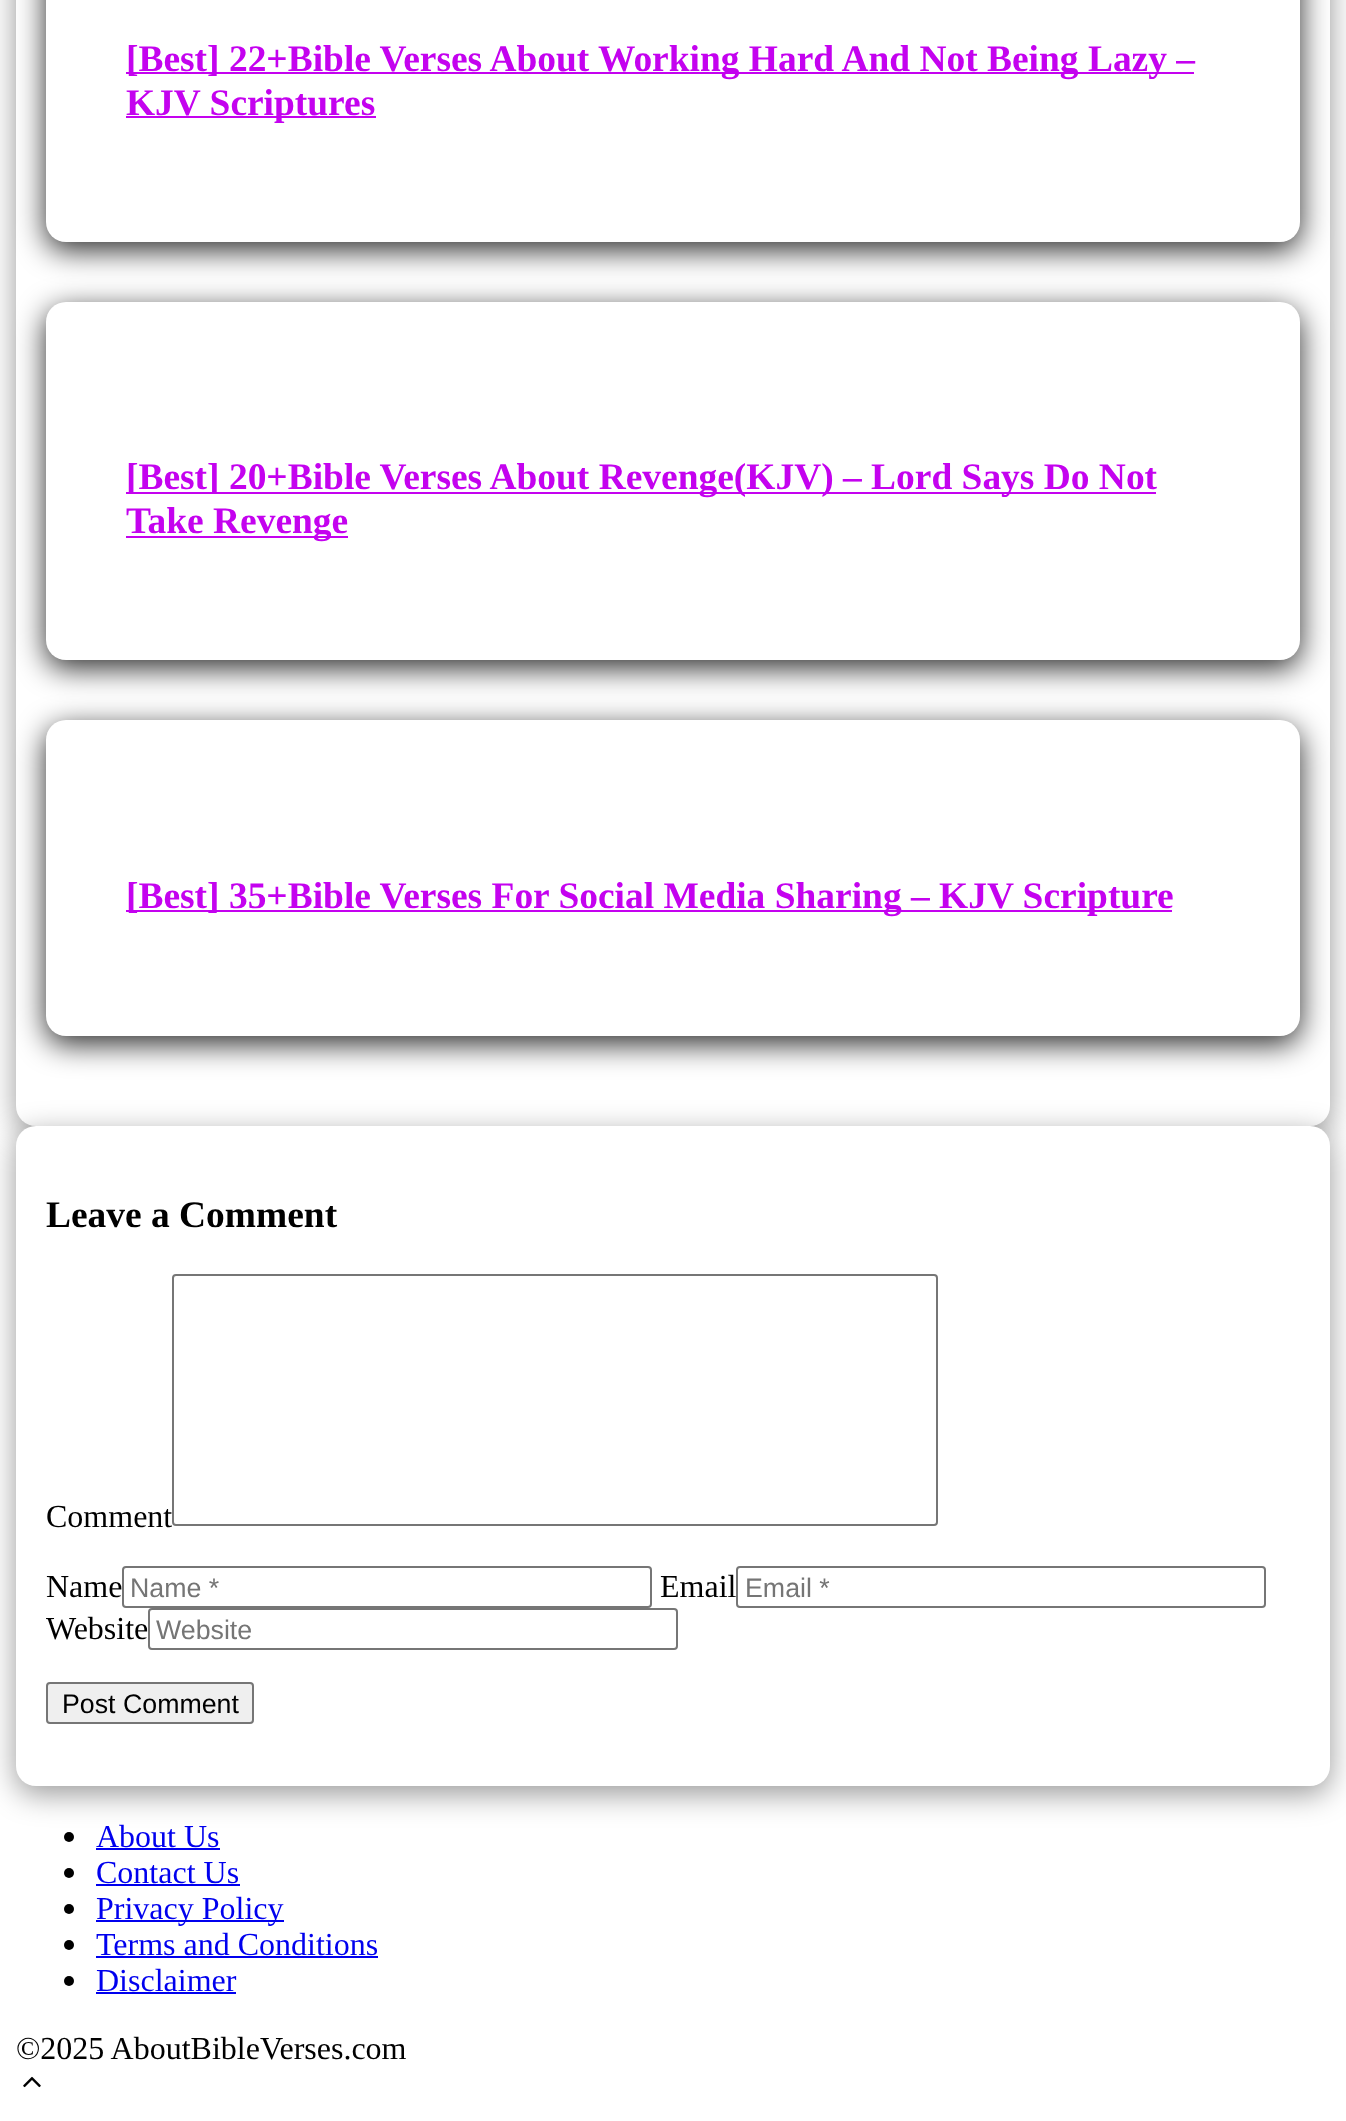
<!DOCTYPE html>
<meta charset="utf-8">
<style>body { margin: 0 } canvas { display: block }</style>
<canvas id="canvas" width="1346" height="2121"></canvas>
<script type="module">
  const canvas = document.getElementById("canvas");
  const ctx = canvas.getContext("2d");
  ctx.miterLimit = 4;
  ctx.fontKerning = "normal";
  async function loadImage(src) {
    const img = new Image();
    img.src = src;
    await img.decode();
    return img;
  }

  ctx.fillStyle = "#ffffff";
  ctx.fillRect(0, 0, 1346, 2121);
  ctx.fillStyle = "rgba(0, 0, 0, 0.4)";
  ctx.filter = "blur(15px)";
  ctx.beginPath();
  ctx.roundRect(16, -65, 1314, 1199, 20);
  ctx.fill();
  ctx.filter = "none";
  ctx.fillStyle = "#ffffff";
  ctx.beginPath();
  ctx.roundRect(16, -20, 1314, 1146, 20);
  ctx.fill();
  ctx.fillStyle = "rgba(0, 0, 0, 0.83)";
  ctx.filter = "blur(15px)";
  ctx.beginPath();
  ctx.roundRect(46, -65, 1254, 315, 20);
  ctx.fill();
  ctx.filter = "none";
  ctx.fillStyle = "#ffffff";
  ctx.beginPath();
  ctx.roundRect(46, -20, 1254, 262, 20);
  ctx.fill();
  ctx.fillStyle = "#c402ef";
  ctx.fillRect(126, 72, 1068, 2);
  ctx.font = "bold 37.45px Liberation Serif";
  ctx.fillText("[Best] 22+Bible Verses About Working Hard And Not Being Lazy –", 126, 71);
  ctx.fillRect(126, 116, 250, 2);
  ctx.fillText("KJV Scriptures", 126, 115);
  ctx.fillStyle = "rgba(0, 0, 0, 0.83)";
  ctx.filter = "blur(15px)";
  ctx.beginPath();
  ctx.roundRect(46, 310, 1254, 358, 20);
  ctx.fill();
  ctx.filter = "none";
  ctx.fillStyle = "#ffffff";
  ctx.beginPath();
  ctx.roundRect(46, 302, 1254, 358, 20);
  ctx.fill();
  ctx.fillStyle = "#c402ef";
  ctx.fillRect(126, 492, 1030, 2);
  ctx.fillText("[Best] 20+Bible Verses About Revenge(KJV) – Lord Says Do Not", 126, 489);
  ctx.fillRect(126, 536, 222, 2);
  ctx.fillText("Take Revenge", 126, 533);
  ctx.fillStyle = "rgba(0, 0, 0, 0.83)";
  ctx.filter = "blur(15px)";
  ctx.beginPath();
  ctx.roundRect(46, 728, 1254, 316, 20);
  ctx.fill();
  ctx.filter = "none";
  ctx.fillStyle = "#ffffff";
  ctx.beginPath();
  ctx.roundRect(46, 720, 1254, 316, 20);
  ctx.fill();
  ctx.fillStyle = "#c402ef";
  ctx.fillRect(126, 910, 1046, 2);
  ctx.fillText("[Best] 35+Bible Verses For Social Media Sharing – KJV Scripture", 126, 908);
  ctx.fillStyle = "rgba(0, 0, 0, 0.4)";
  ctx.filter = "blur(15px)";
  ctx.beginPath();
  ctx.roundRect(16, 1134, 1314, 660, 20);
  ctx.fill();
  ctx.filter = "none";
  ctx.fillStyle = "#ffffff";
  ctx.beginPath();
  ctx.roundRect(16, 1126, 1314, 660, 20);
  ctx.fill();
  ctx.fillStyle = "#000000";
  ctx.fillText("Leave a Comment", 46, 1227);
  ctx.font = "32px Liberation Serif";
  ctx.fillText("Comment", 46, 1527);
  ctx.beginPath();
  ctx.roundRect(173, 1275, 764, 250, 3);
  ctx.strokeStyle = "#767676";
  ctx.lineWidth = 2;
  ctx.stroke();
  ctx.fillText("Name", 46, 1597);
  ctx.beginPath();
  ctx.roundRect(123, 1567, 528, 40, 3);
  ctx.stroke();
  ctx.font = "26.75px Liberation Sans";
  ctx.fillStyle = "#757575";
  ctx.fillText("Name *", 130, 1597);
  ctx.font = "32px Liberation Serif";
  ctx.fillStyle = "#000000";
  ctx.fillText("Email", 660, 1597);
  ctx.fillStyle = "#ffffff";
  ctx.beginPath();
  ctx.roundRect(737, 1567, 528, 40, 3);
  ctx.fill();
  ctx.stroke();
  ctx.font = "26.75px Liberation Sans";
  ctx.fillStyle = "#757575";
  ctx.fillText("Email *", 745, 1597);
  ctx.font = "32px Liberation Serif";
  ctx.fillStyle = "#000000";
  ctx.fillText("Website", 46, 1639);
  ctx.beginPath();
  ctx.roundRect(149, 1609, 528, 40, 3);
  ctx.stroke();
  ctx.font = "26.75px Liberation Sans";
  ctx.fillStyle = "#757575";
  ctx.fillText("Website", 156, 1639);
  ctx.fillStyle = "#efefef";
  ctx.beginPath();
  ctx.roundRect(47, 1683, 206, 40, 3);
  ctx.fill();
  ctx.stroke();
  ctx.fillStyle = "#000000";
  ctx.fillText("Post Comment", 62, 1713);
  ctx.beginPath();
  ctx.arc(69, 1837, 5, 0, Math.PI * 2);
  ctx.fill();
  ctx.font = "32px Liberation Serif";
  ctx.fillStyle = "#0000ee";
  ctx.fillText("About Us", 96, 1847);
  ctx.fillRect(96, 1848, 124, 2);
  ctx.fillStyle = "#000000";
  ctx.beginPath();
  ctx.arc(69, 1873, 5, 0, Math.PI * 2);
  ctx.fill();
  ctx.fillStyle = "#0000ee";
  ctx.fillText("Contact Us", 96, 1883);
  ctx.fillRect(96, 1884, 144, 2);
  ctx.fillStyle = "#000000";
  ctx.beginPath();
  ctx.arc(69, 1909, 5, 0, Math.PI * 2);
  ctx.fill();
  ctx.fillStyle = "#0000ee";
  ctx.fillRect(96, 1920, 188, 2);
  ctx.fillText("Privacy Policy", 96, 1919);
  ctx.fillStyle = "#000000";
  ctx.beginPath();
  ctx.arc(69, 1945, 5, 0, Math.PI * 2);
  ctx.fill();
  ctx.fillStyle = "#0000ee";
  ctx.fillText("Terms and Conditions", 96, 1955);
  ctx.fillRect(96, 1956, 282, 2);
  ctx.fillStyle = "#000000";
  ctx.beginPath();
  ctx.arc(69, 1981, 5, 0, Math.PI * 2);
  ctx.fill();
  ctx.fillStyle = "#0000ee";
  ctx.fillText("Disclaimer", 96, 1991);
  ctx.fillRect(96, 1992, 140, 2);
  ctx.fillStyle = "#000000";
  ctx.fillText("©2025 AboutBibleVerses.com", 16, 2059);
  ctx.drawImage(await loadImage("img1.png"), 23, 2076, 18, 12);
</script>
